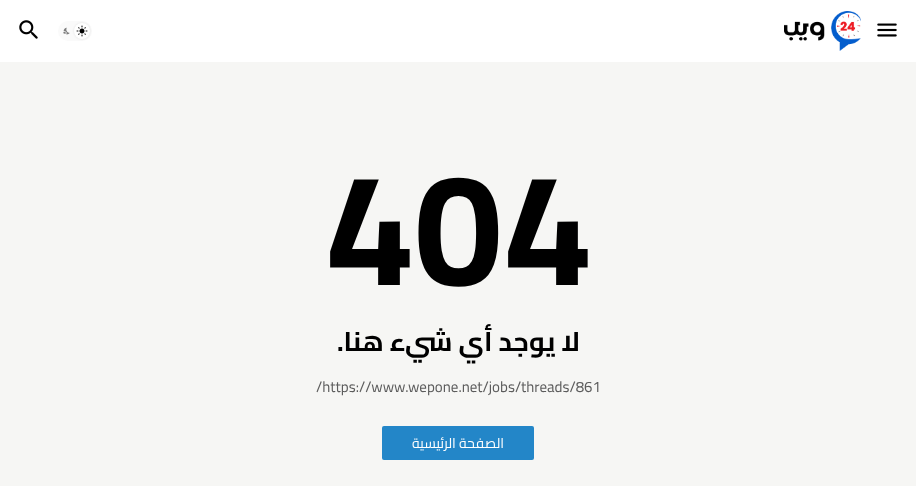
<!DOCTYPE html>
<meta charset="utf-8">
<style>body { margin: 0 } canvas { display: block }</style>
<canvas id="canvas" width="916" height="486"></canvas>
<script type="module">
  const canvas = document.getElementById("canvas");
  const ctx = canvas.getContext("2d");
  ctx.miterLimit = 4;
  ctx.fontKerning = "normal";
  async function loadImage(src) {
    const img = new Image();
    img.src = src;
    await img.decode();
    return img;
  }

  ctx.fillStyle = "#f6f6f4";
  ctx.fillRect(0, 0, 916, 486);
  ctx.fillStyle = "#ffffff";
  ctx.fillRect(0, 0, 916, 62);
  ctx.drawImage(await loadImage("img1.png"), 19, 20, 19, 19);
  ctx.fillStyle = "#fafafa";
  ctx.beginPath();
  ctx.roundRect(58, 21, 34, 20, 10);
  ctx.fill();
  ctx.drawImage(await loadImage("img2.png"), 63, 27, 7, 8);
  ctx.fillStyle = "rgba(0, 0, 0, 0.1)";
  ctx.filter = "blur(1px)";
  ctx.beginPath();
  ctx.roundRect(74, 23, 16, 16, 8);
  ctx.fill();
  ctx.filter = "none";
  ctx.fillStyle = "#ffffff";
  ctx.beginPath();
  ctx.arc(82, 31, 8, 0, Math.PI * 2);
  ctx.fill();
  ctx.drawImage(await loadImage("img3.png"), 76, 25, 12, 12);
  ctx.drawImage(await loadImage("img4.png"), 784, 11, 77, 40);
  ctx.drawImage(await loadImage("img5.png"), 877, 23, 20, 14);
  ctx.font = "bold 160px Cairo";
  ctx.fillStyle = "#000000";
  ctx.fillText("404", 325, 285);
  ctx.direction = "rtl";
  ctx.font = "bold 27px Cairo";
  ctx.fillText("لا يوجد أي شيء هنا.", 580, 351);
  ctx.direction = "ltr";
  ctx.font = "15px Cairo";
  ctx.fillStyle = "#5c5c5c";
  ctx.fillText("/https://www.wepone.net/jobs/threads/861", 316, 392);
  ctx.fillStyle = "#2386c8";
  ctx.beginPath();
  ctx.roundRect(382, 426, 152, 34, 2);
  ctx.fill();
  ctx.direction = "rtl";
  ctx.font = "14px Cairo";
  ctx.fillStyle = "#ffffff";
  ctx.fillText("الصفحة الرئيسية", 504, 448);
</script>
